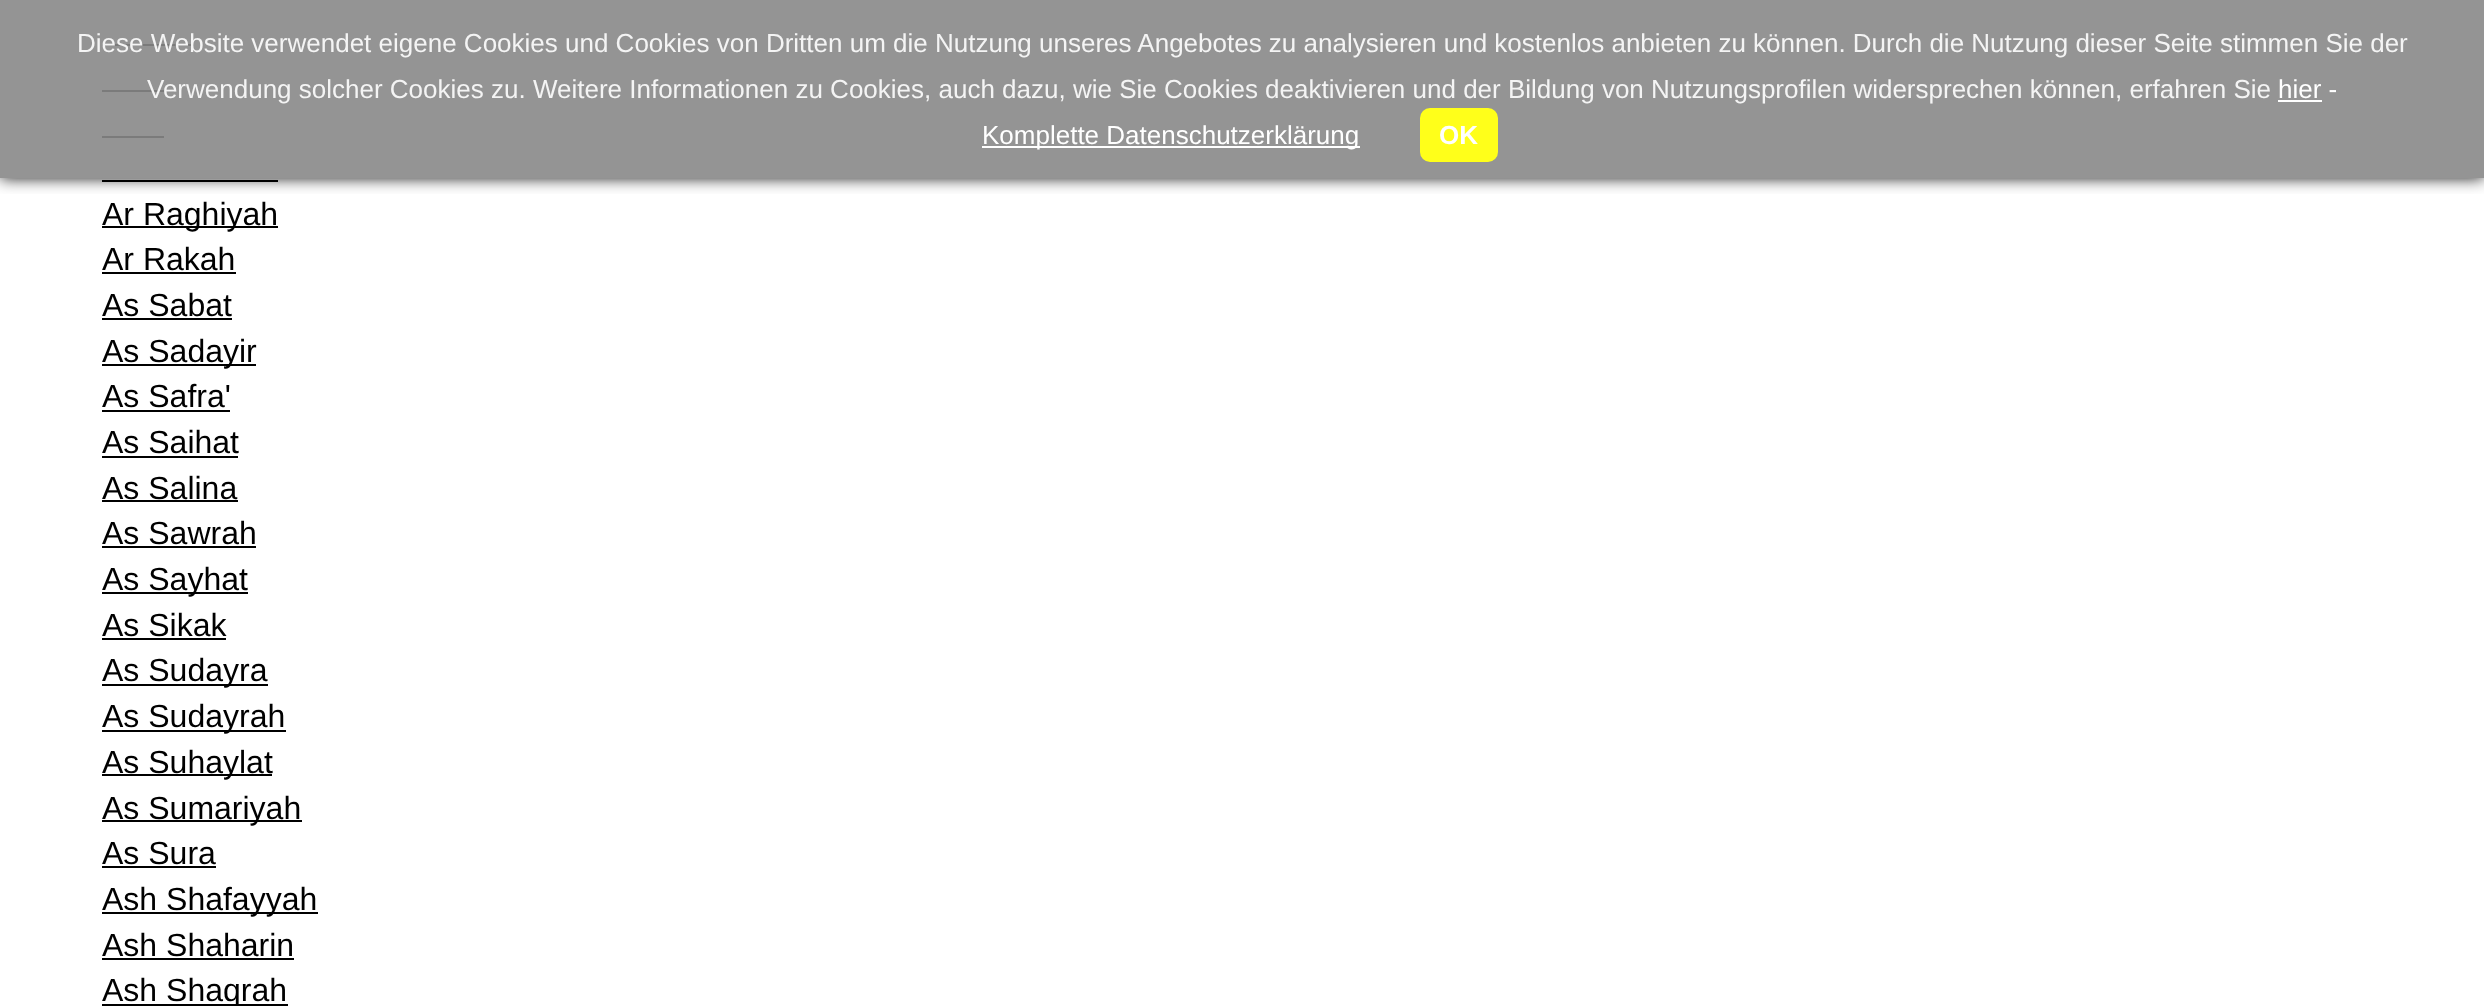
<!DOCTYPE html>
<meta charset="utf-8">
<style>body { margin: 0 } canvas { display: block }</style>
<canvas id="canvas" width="2484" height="1006"></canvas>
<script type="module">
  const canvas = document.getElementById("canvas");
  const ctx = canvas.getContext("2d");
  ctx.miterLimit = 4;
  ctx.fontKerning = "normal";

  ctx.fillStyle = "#ffffff";
  ctx.fillRect(0, 0, 2484, 1006);
  ctx.fillStyle = "#000000";
  ctx.fillRect(102, 44, 90, 2);
  ctx.fillRect(102, 90, 72, 2);
  ctx.fillRect(102, 136, 62, 2);
  ctx.fillRect(102, 180, 176, 2);
  ctx.save();
  ctx.beginPath();
  ctx.rect(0, 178, 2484, 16);
  ctx.clip();
  ctx.fillStyle = "rgba(0, 0, 0, 0.9)";
  ctx.filter = "blur(8px)";
  ctx.beginPath();
  ctx.rect(0, 0, 2484, 178);
  ctx.fill();
  ctx.filter = "none";
  ctx.restore();
  ctx.fillStyle = "rgba(136, 136, 136, 0.9)";
  ctx.fillRect(0, 0, 2484, 178);
  ctx.font = "26px Liberation Sans";
  ctx.fillStyle = "#f4f4f4";
  ctx.fillText("Diese Website verwendet eigene Cookies und Cookies von Dritten um die Nutzung unseres Angebotes zu analysieren und kostenlos anbieten zu können. Durch die Nutzung dieser Seite stimmen Sie der", 77, 52);
  ctx.fillText("Verwendung solcher Cookies zu. Weitere Informationen zu Cookies, auch dazu, wie Sie Cookies deaktivieren und der Bildung von Nutzungsprofilen widersprechen können, erfahren Sie", 147, 98);
  ctx.fillStyle = "#ffffff";
  ctx.fillText("hier -", 2278, 98);
  ctx.fillRect(2278, 100, 44, 2);
  ctx.fillRect(982, 146, 378, 2);
  ctx.fillText("Komplette Datenschutzerklärung", 982, 144);
  ctx.fillStyle = "#ffff1a";
  ctx.beginPath();
  ctx.roundRect(1420, 108, 78, 54, 10);
  ctx.fill();
  ctx.font = "bold 26px Liberation Sans";
  ctx.fillStyle = "#ffffff";
  ctx.fillText("OK", 1439, 144);
  ctx.fillStyle = "#000000";
  ctx.fillRect(102, 226, 176, 2);
  ctx.font = "32px Liberation Sans";
  ctx.fillText("Ar Raghiyah", 102, 225);
  ctx.fillText("Ar Rakah", 102, 270);
  ctx.fillRect(102, 272, 134, 2);
  ctx.fillText("As Sabat", 102, 316);
  ctx.fillRect(102, 318, 130, 2);
  ctx.fillRect(102, 364, 154, 2);
  ctx.fillText("As Sadayir", 102, 362);
  ctx.fillText("As Safra'", 102, 407);
  ctx.fillRect(102, 410, 128, 2);
  ctx.fillText("As Saihat", 102, 453);
  ctx.fillRect(102, 456, 136, 2);
  ctx.fillText("As Salina", 102, 499);
  ctx.fillRect(102, 500, 136, 2);
  ctx.fillText("As Sawrah", 102, 544);
  ctx.fillRect(102, 546, 154, 2);
  ctx.fillRect(102, 592, 146, 2);
  ctx.fillText("As Sayhat", 102, 590);
  ctx.fillText("As Sikak", 102, 636);
  ctx.fillRect(102, 638, 124, 2);
  ctx.fillRect(102, 684, 166, 2);
  ctx.fillText("As Sudayra", 102, 681);
  ctx.fillRect(102, 730, 184, 2);
  ctx.fillText("As Sudayrah", 102, 727);
  ctx.fillRect(102, 774, 170, 2);
  ctx.fillText("As Suhaylat", 102, 773);
  ctx.fillRect(102, 820, 200, 2);
  ctx.fillText("As Sumariyah", 102, 819);
  ctx.fillText("As Sura", 102, 864);
  ctx.fillRect(102, 866, 114, 2);
  ctx.fillRect(102, 912, 216, 2);
  ctx.fillText("Ash Shafayyah", 102, 910);
  ctx.fillText("Ash Shaharin", 102, 956);
  ctx.fillRect(102, 958, 192, 2);
  ctx.fillRect(102, 1004, 186, 2);
  ctx.fillText("Ash Shaqrah", 102, 1001);
</script>
